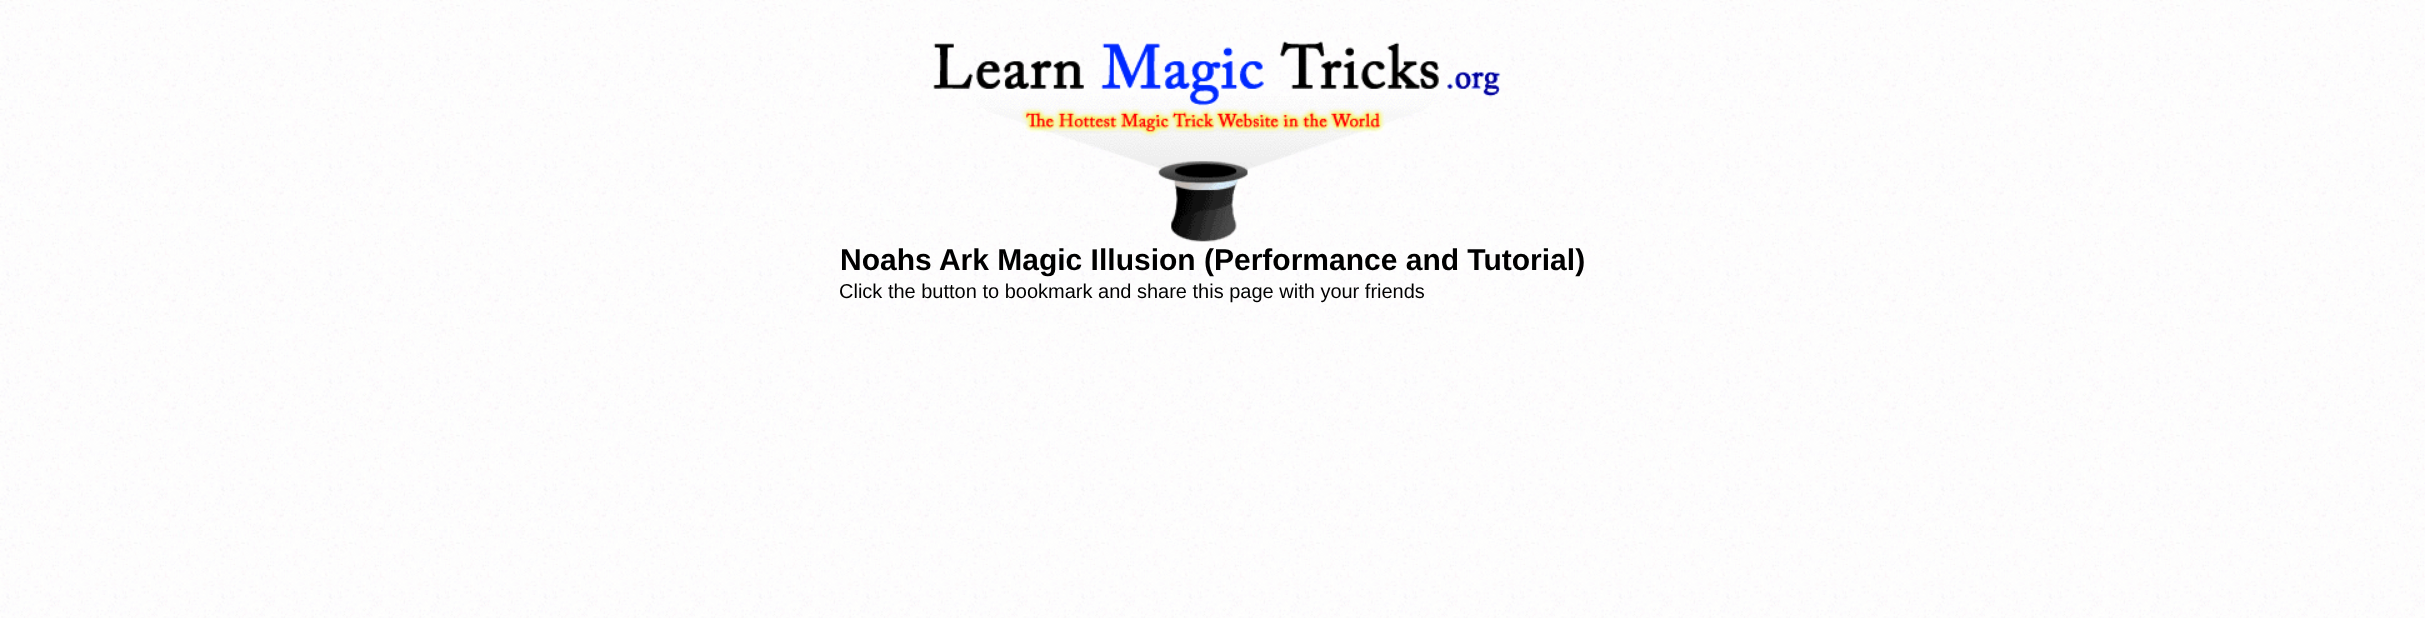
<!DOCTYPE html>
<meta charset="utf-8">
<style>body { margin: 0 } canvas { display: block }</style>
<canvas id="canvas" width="2425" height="618"></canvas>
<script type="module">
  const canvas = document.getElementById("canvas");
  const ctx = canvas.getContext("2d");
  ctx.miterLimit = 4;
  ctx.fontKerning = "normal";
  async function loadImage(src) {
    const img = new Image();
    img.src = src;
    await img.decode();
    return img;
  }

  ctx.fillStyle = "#ffffff";
  ctx.fillRect(0, 0, 2425, 618);
  ctx.drawImage(await loadImage("img1.png"), 0, 0, 2425, 618);
  ctx.drawImage(await loadImage("img2.png"), 933, 41, 568, 201);
  ctx.font = "bold 30px Liberation Sans";
  ctx.fillStyle = "#000000";
  ctx.fillText("Noahs Ark Magic Illusion (Performance and Tutorial)", 840, 270);
  ctx.font = "20px Liberation Sans";
  ctx.fillText("Click the button to bookmark and share this page with your friends", 839, 298);
</script>
